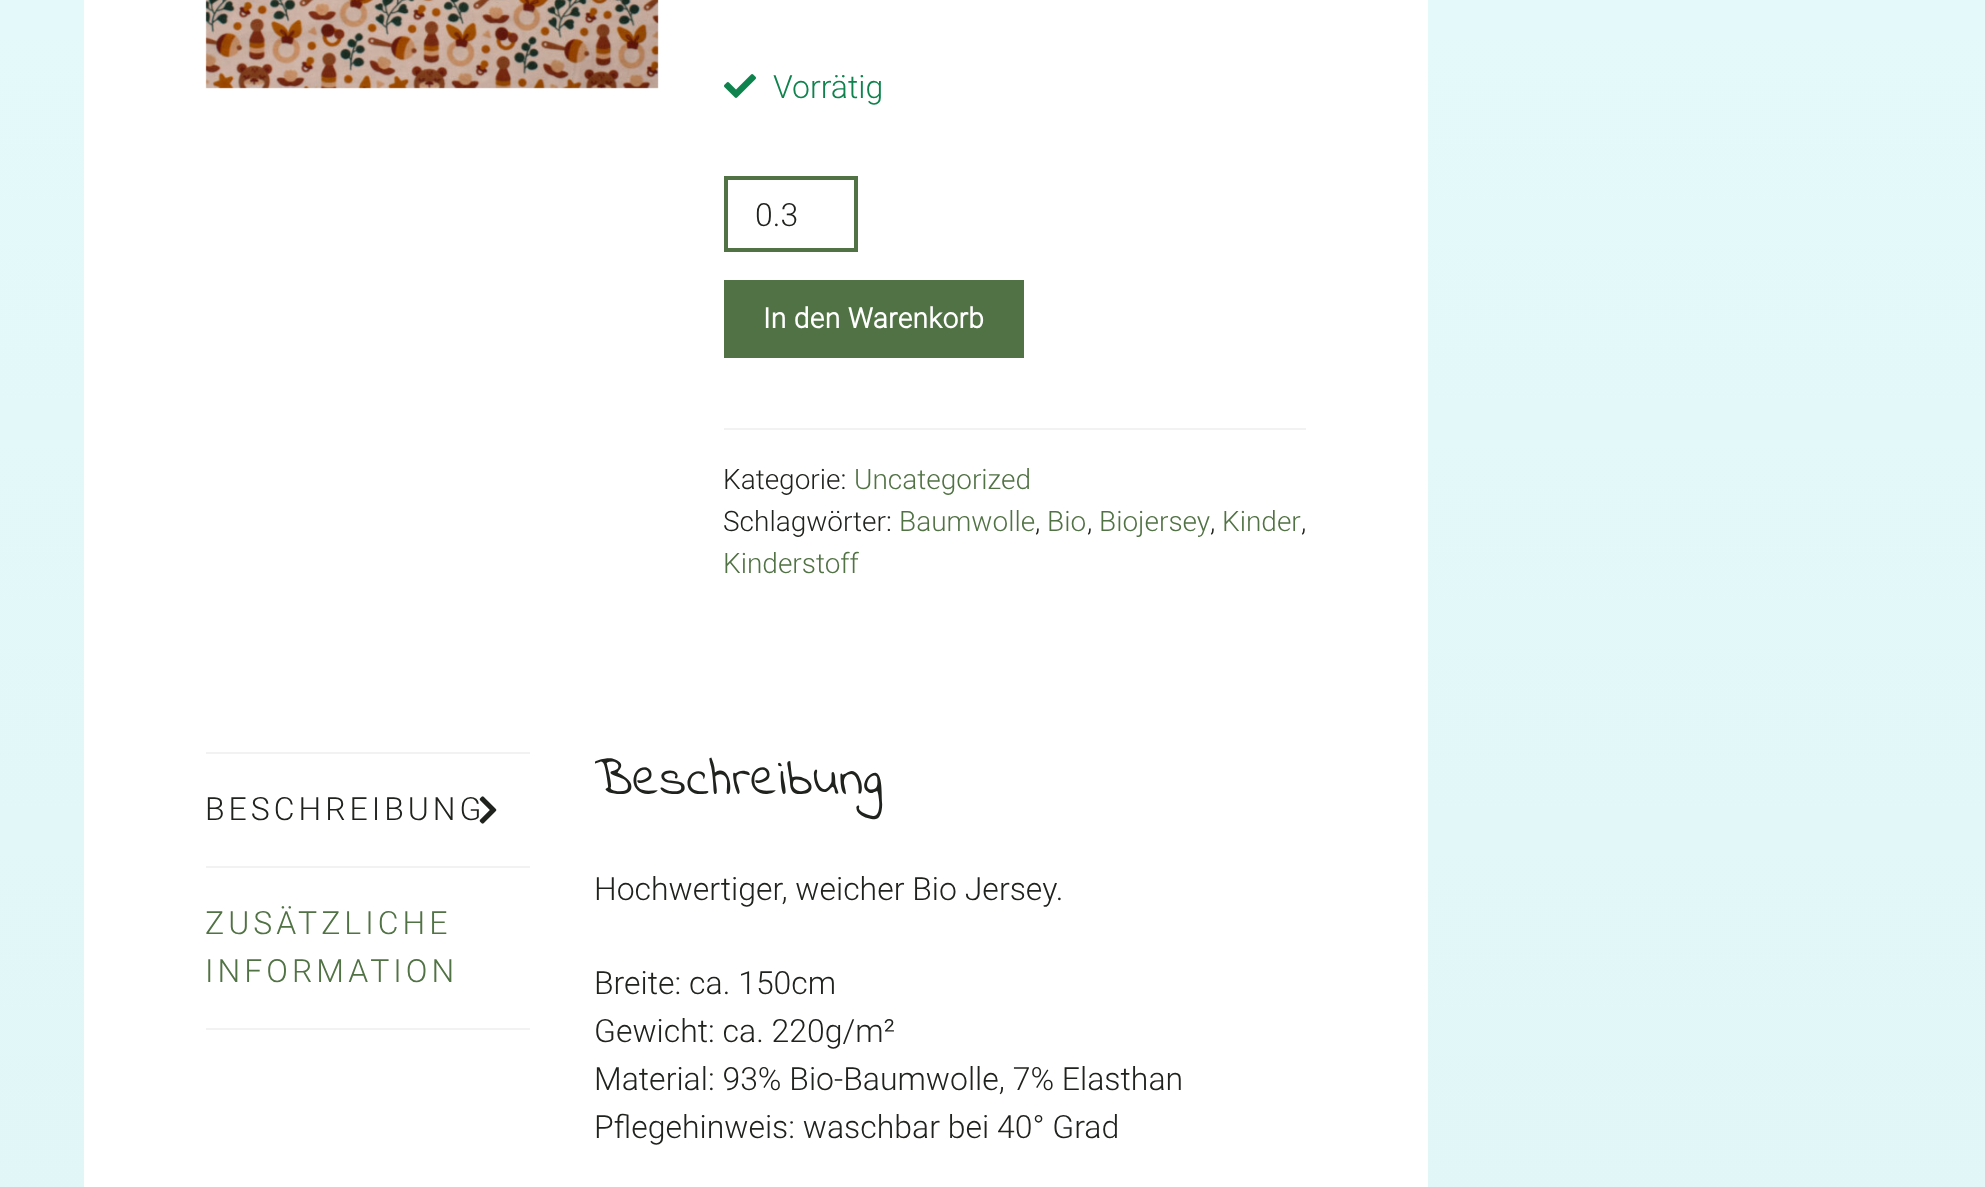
<!DOCTYPE html>
<meta charset="utf-8">
<style>body { margin: 0 } canvas { display: block }</style>
<canvas id="canvas" width="1985" height="1187"></canvas>
<script type="module">
  const canvas = document.getElementById("canvas");
  const ctx = canvas.getContext("2d");
  ctx.miterLimit = 4;
  ctx.fontKerning = "normal";
  async function loadImage(src) {
    const img = new Image();
    img.src = src;
    await img.decode();
    return img;
  }
  let gradient;

  ctx.fillStyle = "#ffffff";
  ctx.fillRect(0, 0, 1985, 1187);
  gradient = ctx.createLinearGradient(993, -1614, 993, 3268);
  gradient.addColorStop(0, "#e8fefe");
  gradient.addColorStop(1, "#dcf1f2");
  ctx.fillStyle = gradient;
  ctx.fillRect(0, 0, 1985, 1187);
  ctx.fillStyle = "#ffffff";
  ctx.fillRect(84, 0, 1344, 1187);
  ctx.drawImage(await loadImage("img1.png"), 205, 0, 454, 89);
  ctx.drawImage(await loadImage("img2.png"), 724, 74, 32, 24);
  ctx.font = "300 32px Roboto";
  ctx.fillStyle = "#0f834d";
  ctx.fillText("Vorrätig", 773, 98);
  ctx.strokeStyle = "#517244";
  ctx.lineWidth = 4;
  ctx.strokeRect(726, 178, 130, 72);
  ctx.fillStyle = "#20221d";
  ctx.fillText("0.3", 755, 226);
  ctx.fillStyle = "#517244";
  ctx.fillRect(724, 280, 300, 78);
  ctx.letterSpacing = "0.4px";
  ctx.font = "bold 28px Roboto";
  ctx.fillStyle = "#ffffff";
  ctx.fillText("In den Warenkorb", 763, 328);
  ctx.fillStyle = "#f2f2f2";
  ctx.fillRect(724, 428, 582, 2);
  ctx.letterSpacing = "0px";
  ctx.font = "300 28px Roboto";
  ctx.fillStyle = "#20221d";
  ctx.fillText("Kategorie:", 723, 489);
  ctx.fillStyle = "#517244";
  ctx.fillText("Uncategorized", 854, 489);
  ctx.fillStyle = "#20221d";
  ctx.fillText("Schlagwörter:", 723, 531);
  ctx.fillStyle = "#517244";
  ctx.fillText("Baumwolle", 899, 531);
  ctx.fillStyle = "#20221d";
  ctx.fillText(",", 1035, 531);
  ctx.fillStyle = "#517244";
  ctx.fillText("Bio", 1047, 531);
  ctx.fillStyle = "#20221d";
  ctx.fillText(",", 1087, 531);
  ctx.fillStyle = "#517244";
  ctx.fillText("Biojersey", 1099, 531);
  ctx.fillStyle = "#20221d";
  ctx.fillText(",", 1210, 531);
  ctx.fillStyle = "#517244";
  ctx.fillText("Kinder", 1222, 531);
  ctx.fillStyle = "#20221d";
  ctx.fillText(",", 1301, 531);
  ctx.fillStyle = "#517244";
  ctx.fillText("Kinderstoff", 723, 573);
  ctx.fillStyle = "#f2f2f2";
  ctx.fillRect(206, 752, 324, 2);
  ctx.fillRect(206, 866, 324, 2);
  ctx.letterSpacing = "4px";
  ctx.font = "300 32px Roboto";
  ctx.fillStyle = "#20221d";
  ctx.fillText("BESCHREIBUNG", 205, 820);
  ctx.drawImage(await loadImage("img3.png"), 479, 796, 18, 28);
  ctx.fillStyle = "#f2f2f2";
  ctx.fillRect(206, 1028, 324, 2);
  ctx.fillStyle = "#517244";
  ctx.fillText("ZUSÄTZLICHE", 205, 934);
  ctx.fillText("INFORMATION", 205, 982);
  ctx.letterSpacing = "0.25px";
  ctx.font = "51.75px Indie Flower";
  ctx.fillStyle = "#20221d";
  ctx.fillText("Beschreibung", 594, 794);
  ctx.letterSpacing = "0px";
  ctx.font = "300 32px Roboto";
  ctx.fillText("Hochwertiger, weicher Bio Jersey.", 594, 900);
  ctx.fillText("Breite: ca. 150cm", 594, 994);
  ctx.fillText("Gewicht: ca. 220g/m²", 594, 1042);
  ctx.fillText("Material: 93% Bio-Baumwolle, 7% Elasthan", 594, 1090);
  ctx.fillText("Pflegehinweis: waschbar bei 40° Grad", 594, 1138);
</script>
